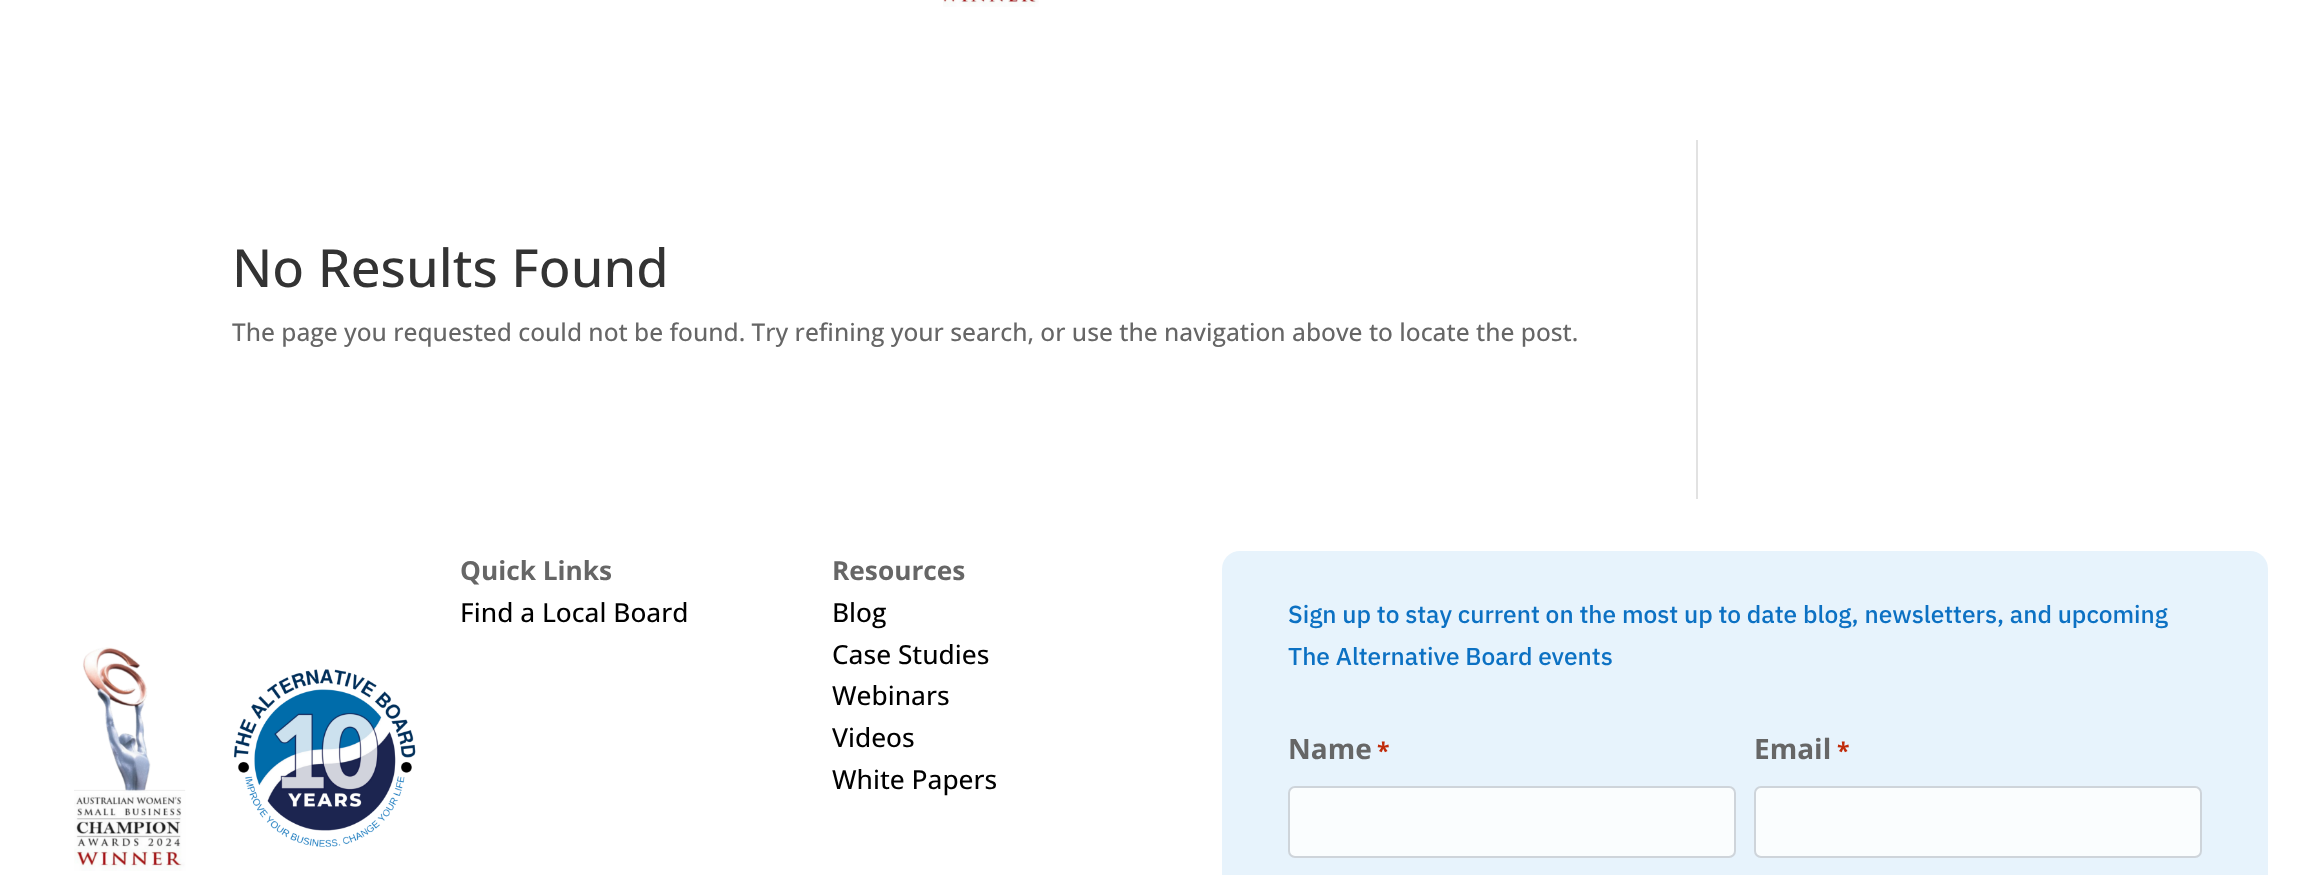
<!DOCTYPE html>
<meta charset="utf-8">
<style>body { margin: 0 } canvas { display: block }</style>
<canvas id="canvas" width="2315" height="875"></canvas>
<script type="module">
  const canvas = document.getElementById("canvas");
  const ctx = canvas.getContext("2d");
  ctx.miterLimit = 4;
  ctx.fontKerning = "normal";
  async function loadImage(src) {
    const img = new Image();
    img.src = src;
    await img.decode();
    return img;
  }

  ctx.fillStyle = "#ffffff";
  ctx.fillRect(0, 0, 2315, 875);
  ctx.drawImage(await loadImage("img1.png"), 943, 0, 96, 7);
  ctx.font = "500 52.5px Open Sans";
  ctx.fillStyle = "#333333";
  ctx.fillText("No Results Found", 232, 287);
  ctx.font = "500 24.5px Open Sans";
  ctx.fillStyle = "#666666";
  ctx.fillText("The page you requested could not be found. Try refining your search, or use the navigation above to locate the post.", 232, 341);
  ctx.fillStyle = "#e2e2e2";
  ctx.fillRect(1696, 140, 2, 359);
  ctx.drawImage(await loadImage("img2.png"), 74, 647, 342, 224);
  ctx.font = "bold 26.25px Open Sans";
  ctx.fillStyle = "#666666";
  ctx.fillText("Quick Links", 460, 580);
  ctx.font = "500 26.25px Open Sans";
  ctx.fillStyle = "#000000";
  ctx.fillText("Find a Local Board", 460, 622);
  ctx.font = "bold 26.25px Open Sans";
  ctx.fillStyle = "#666666";
  ctx.fillText("Resources", 832, 580);
  ctx.font = "500 26.25px Open Sans";
  ctx.fillStyle = "#000000";
  ctx.fillText("Blog", 832, 622);
  ctx.fillText("Case Studies", 832, 664);
  ctx.fillText("Webinars", 832, 705);
  ctx.fillText("Videos", 832, 747);
  ctx.fillText("White Papers", 832, 789);
  ctx.fillStyle = "#e7f3fc";
  ctx.beginPath();
  ctx.roundRect(1222, 551, 1046, 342, 18);
  ctx.fill();
  ctx.font = "500 24.5px IBM Plex Sans";
  ctx.fillStyle = "#0c71c3";
  ctx.fillText("Sign up to stay current on the most up to date blog, newsletters, and upcoming", 1288, 623);
  ctx.fillText("The Alternative Board events", 1288, 665);
  ctx.font = "bold 28px Open Sans";
  ctx.fillStyle = "#666666";
  ctx.fillText("Name", 1288, 759);
  ctx.font = "bold 23px Open Sans";
  ctx.fillStyle = "#c02b0a";
  ctx.fillText("*", 1377, 759);
  ctx.fillStyle = "#fafdfe";
  ctx.beginPath();
  ctx.roundRect(1289, 787, 446, 70, 6);
  ctx.fill();
  ctx.strokeStyle = "#ced4da";
  ctx.lineWidth = 2;
  ctx.stroke();
  ctx.font = "bold 28px Open Sans";
  ctx.fillStyle = "#666666";
  ctx.fillText("Email", 1754, 759);
  ctx.font = "bold 23px Open Sans";
  ctx.fillStyle = "#c02b0a";
  ctx.fillText("*", 1837, 759);
  ctx.fillStyle = "#fafdfe";
  ctx.beginPath();
  ctx.roundRect(1755, 787, 446, 70, 6);
  ctx.fill();
  ctx.stroke();
</script>
